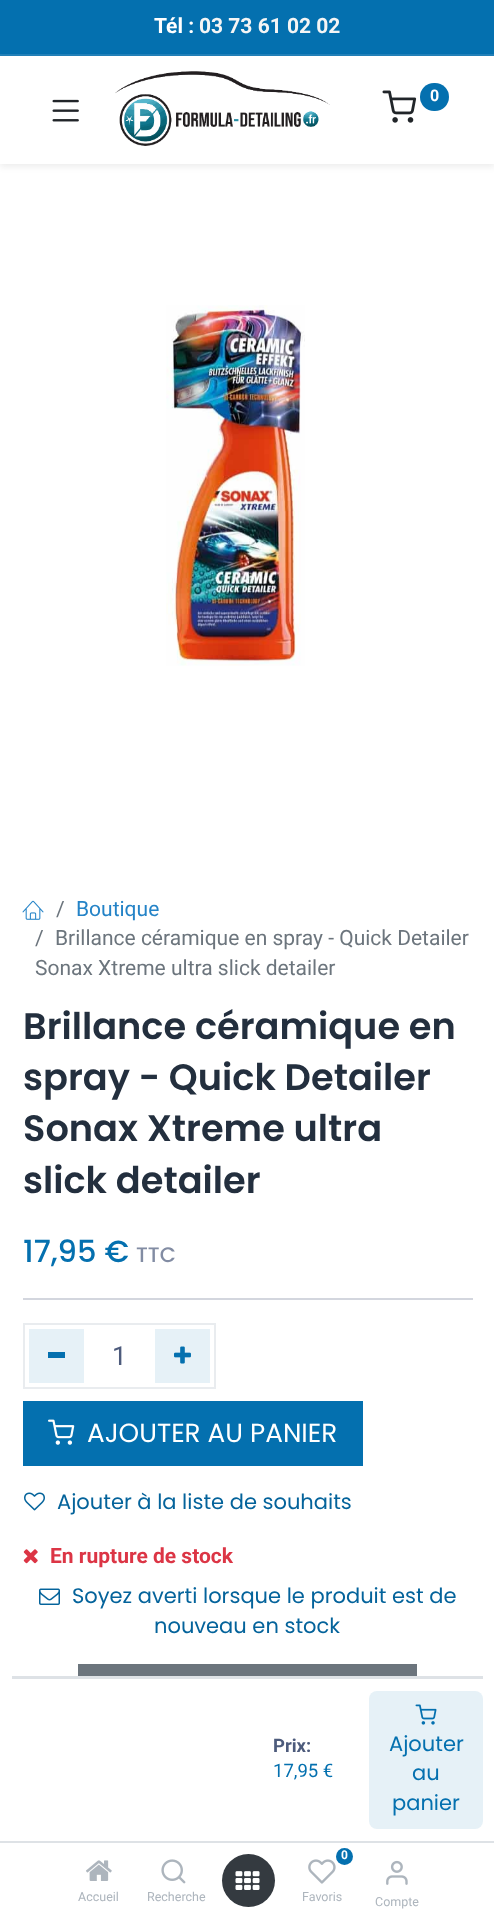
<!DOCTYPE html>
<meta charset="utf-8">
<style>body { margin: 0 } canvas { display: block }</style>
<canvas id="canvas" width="494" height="1924"></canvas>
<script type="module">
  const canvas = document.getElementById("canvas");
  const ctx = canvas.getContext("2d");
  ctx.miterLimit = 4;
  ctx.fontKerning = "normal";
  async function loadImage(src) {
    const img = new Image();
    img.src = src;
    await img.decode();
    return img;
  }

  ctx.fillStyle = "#ffffff";
  ctx.fillRect(0, 0, 494, 1924);
  ctx.fillStyle = "#0470af";
  ctx.fillRect(0, 0, 494, 54);
  ctx.fillStyle = "#2281b9";
  ctx.fillRect(0, 54, 494, 2);
  ctx.font = "bold 21px Roboto";
  ctx.fillStyle = "#ffffff";
  ctx.fillText("Tél :", 154, 33);
  ctx.fillStyle = "#f5f5f5";
  ctx.fillText("03 73 61 02 02", 199, 33);
  ctx.fillStyle = "rgba(0, 0, 0, 0.07)";
  ctx.filter = "blur(3px)";
  ctx.beginPath();
  ctx.rect(0, 59, 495, 108);
  ctx.fill();
  ctx.filter = "none";
  ctx.fillStyle = "#ffffff";
  ctx.fillRect(0, 56, 494, 108);
  ctx.drawImage(await loadImage("img1.png"), 115, 71, 215, 75);
  ctx.drawImage(await loadImage("img2.png"), 382, 90, 35, 33);
  ctx.fillStyle = "#0470af";
  ctx.beginPath();
  ctx.roundRect(420, 83, 29, 28, 14);
  ctx.fill();
  ctx.font = "bold 16px Roboto";
  ctx.fillStyle = "#ffffff";
  ctx.fillText("0", 430, 101);
  ctx.drawImage(await loadImage("img3.png"), 52, 99, 27, 23);
  ctx.drawImage(await loadImage("img4.png"), 166, 305, 139, 361);
  ctx.drawImage(await loadImage("img5.png"), 22, 900, 22, 20);
  ctx.font = "21px Roboto";
  ctx.fillStyle = "#6c757d";
  ctx.fillText("/", 56, 916);
  ctx.fillStyle = "#2483c7";
  ctx.fillText("Boutique", 76, 916);
  ctx.fillStyle = "#6c757d";
  ctx.fillText("/", 35, 945);
  ctx.fillText("Brillance céramique en spray - Quick Detailer", 55, 945);
  ctx.fillText("Sonax Xtreme ultra slick detailer", 35, 975);
  ctx.font = "600 36.75px Poppins";
  ctx.fillStyle = "#232f3e";
  ctx.fillText("Brillance céramique en", 23, 1039);
  ctx.fillText("spray - Quick Detailer", 23, 1090);
  ctx.fillText("Sonax Xtreme ultra", 23, 1141);
  ctx.fillText("slick detailer", 23, 1193);
  ctx.font = "500 30.5px Poppins";
  ctx.fillStyle = "#0470af";
  ctx.fillText("17,95 €", 23, 1262);
  ctx.font = "500 21px Poppins";
  ctx.fillStyle = "#828ca3";
  ctx.fillText("TTC", 136, 1262);
  ctx.fillStyle = "#d3d6de";
  ctx.fillRect(23, 1298, 450, 2);
  ctx.strokeStyle = "#e9ecef";
  ctx.lineWidth = 2;
  ctx.strokeRect(24, 1324, 191, 64);
  ctx.fillStyle = "#e6f1f7";
  ctx.fillRect(29, 1329, 55, 54);
  ctx.fillStyle = "#0470af";
  ctx.fillRect(48, 1352, 17, 6);
  ctx.font = "26.25px Roboto";
  ctx.fillStyle = "#4d5b7c";
  ctx.fillText("1", 112, 1365);
  ctx.fillStyle = "#e6f1f7";
  ctx.fillRect(155, 1329, 55, 54);
  ctx.drawImage(await loadImage("img6.png"), 174, 1346, 17, 18);
  ctx.fillStyle = "#0470af";
  ctx.fillRect(23, 1401, 340, 65);
  ctx.drawImage(await loadImage("img7.png"), 48, 1419, 27, 26);
  ctx.font = "26.25px Poppins";
  ctx.fillStyle = "#ffffff";
  ctx.fillText("AJOUTER AU PANIER", 87, 1442);
  ctx.drawImage(await loadImage("img8.png"), 24, 1492, 21, 19);
  ctx.font = "21px Poppins";
  ctx.fillStyle = "#04639b";
  ctx.fillText("Ajouter à la liste de souhaits", 57, 1509);
  ctx.drawImage(await loadImage("img9.png"), 23, 1549, 15, 15);
  ctx.font = "bold 21px Roboto";
  ctx.fillStyle = "#dc3545";
  ctx.fillText("En rupture de stock", 50, 1563);
  ctx.drawImage(await loadImage("img10.png"), 39, 1588, 21, 17);
  ctx.font = "21px Poppins";
  ctx.fillStyle = "#04639b";
  ctx.fillText("Soyez averti lorsque le produit est de", 72, 1603);
  ctx.fillText("nouveau en stock", 154, 1633);
  ctx.fillStyle = "#6c757d";
  ctx.fillRect(78, 1664, 339, 12);
  ctx.fillStyle = "#dee2e6";
  ctx.fillRect(12, 1676, 471, 3);
  ctx.fillRect(0, 1841, 494, 2);
  ctx.font = "bold 18.5px Roboto";
  ctx.fillStyle = "#4d5b7c";
  ctx.fillText("Prix:", 273, 1752);
  ctx.font = "18.5px Roboto";
  ctx.fillStyle = "#0470af";
  ctx.fillText("17,95 €", 273, 1777);
  ctx.fillStyle = "#e6f1f7";
  ctx.beginPath();
  ctx.roundRect(369, 1691, 114, 138, 8);
  ctx.fill();
  ctx.drawImage(await loadImage("img11.png"), 415, 1704, 22, 21);
  ctx.font = "21px Poppins";
  ctx.fillStyle = "#0470af";
  ctx.fillText("Ajouter", 389, 1751);
  ctx.fillText("au", 412, 1780);
  ctx.fillText("panier", 392, 1810);
  ctx.drawImage(await loadImage("img12.png"), 86, 1860, 26, 21);
  ctx.font = "12.5px Roboto";
  ctx.fillStyle = "#adb5bd";
  ctx.fillText("Accueil", 78, 1901);
  ctx.drawImage(await loadImage("img13.png"), 161, 1859, 25, 25);
  ctx.fillText("Recherche", 147, 1901);
  ctx.fillStyle = "#343a40";
  ctx.beginPath();
  ctx.arc(248.5, 1880.5, 26.5, 0, Math.PI * 2);
  ctx.fill();
  ctx.drawImage(await loadImage("img14.png"), 235, 1871, 25, 19);
  ctx.fillStyle = "#0470af";
  ctx.beginPath();
  ctx.arc(344.5, 1856.5, 8.5, 0, Math.PI * 2);
  ctx.fill();
  ctx.font = "bold 12px Roboto";
  ctx.fillStyle = "#ffffff";
  ctx.fillText("0", 341, 1859);
  ctx.drawImage(await loadImage("img15.png"), 308, 1859, 28, 25);
  ctx.font = "12.5px Roboto";
  ctx.fillStyle = "#adb5bd";
  ctx.fillText("Favoris", 302, 1901);
  ctx.drawImage(await loadImage("img16.png"), 386, 1860, 22, 25);
  ctx.fillText("Compte", 375, 1906);
</script>
